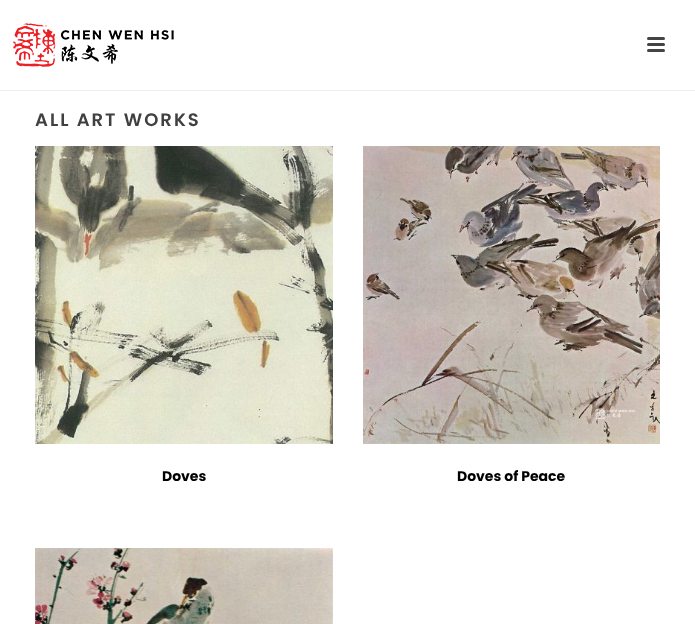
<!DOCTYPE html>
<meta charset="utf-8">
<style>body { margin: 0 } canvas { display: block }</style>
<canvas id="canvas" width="695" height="624"></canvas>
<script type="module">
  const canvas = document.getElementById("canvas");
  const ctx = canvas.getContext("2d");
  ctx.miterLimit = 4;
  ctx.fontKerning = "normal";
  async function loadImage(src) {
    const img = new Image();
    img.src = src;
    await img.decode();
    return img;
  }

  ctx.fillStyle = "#ffffff";
  ctx.fillRect(0, 0, 695, 624);
  ctx.fillStyle = "#ededed";
  ctx.fillRect(0, 90, 695, 1);
  ctx.drawImage(await loadImage("img1.png"), 13, 23, 161, 44);
  ctx.fillStyle = "#444444";
  ctx.beginPath();
  ctx.roundRect(647, 37, 18, 3, 1.5);
  ctx.fill();
  ctx.beginPath();
  ctx.roundRect(647, 43, 18, 3, 1.5);
  ctx.fill();
  ctx.beginPath();
  ctx.roundRect(647, 49, 18, 3, 1.5);
  ctx.fill();
  ctx.letterSpacing = "2px";
  ctx.font = "600 18px Poppins";
  ctx.fillStyle = "#404040";
  ctx.fillText("ALL ART WORKS", 35, 126);
  ctx.drawImage(await loadImage("img2.png"), 35, 146, 298, 298);
  ctx.letterSpacing = "0px";
  ctx.font = "bold 14px Poppins";
  ctx.fillStyle = "#000000";
  ctx.fillText("Doves", 162, 481);
  ctx.drawImage(await loadImage("img3.png"), 363, 146, 297, 298);
  ctx.fillText("Doves of Peace", 457, 481);
  ctx.drawImage(await loadImage("img4.png"), 35, 548, 298, 76);
</script>
